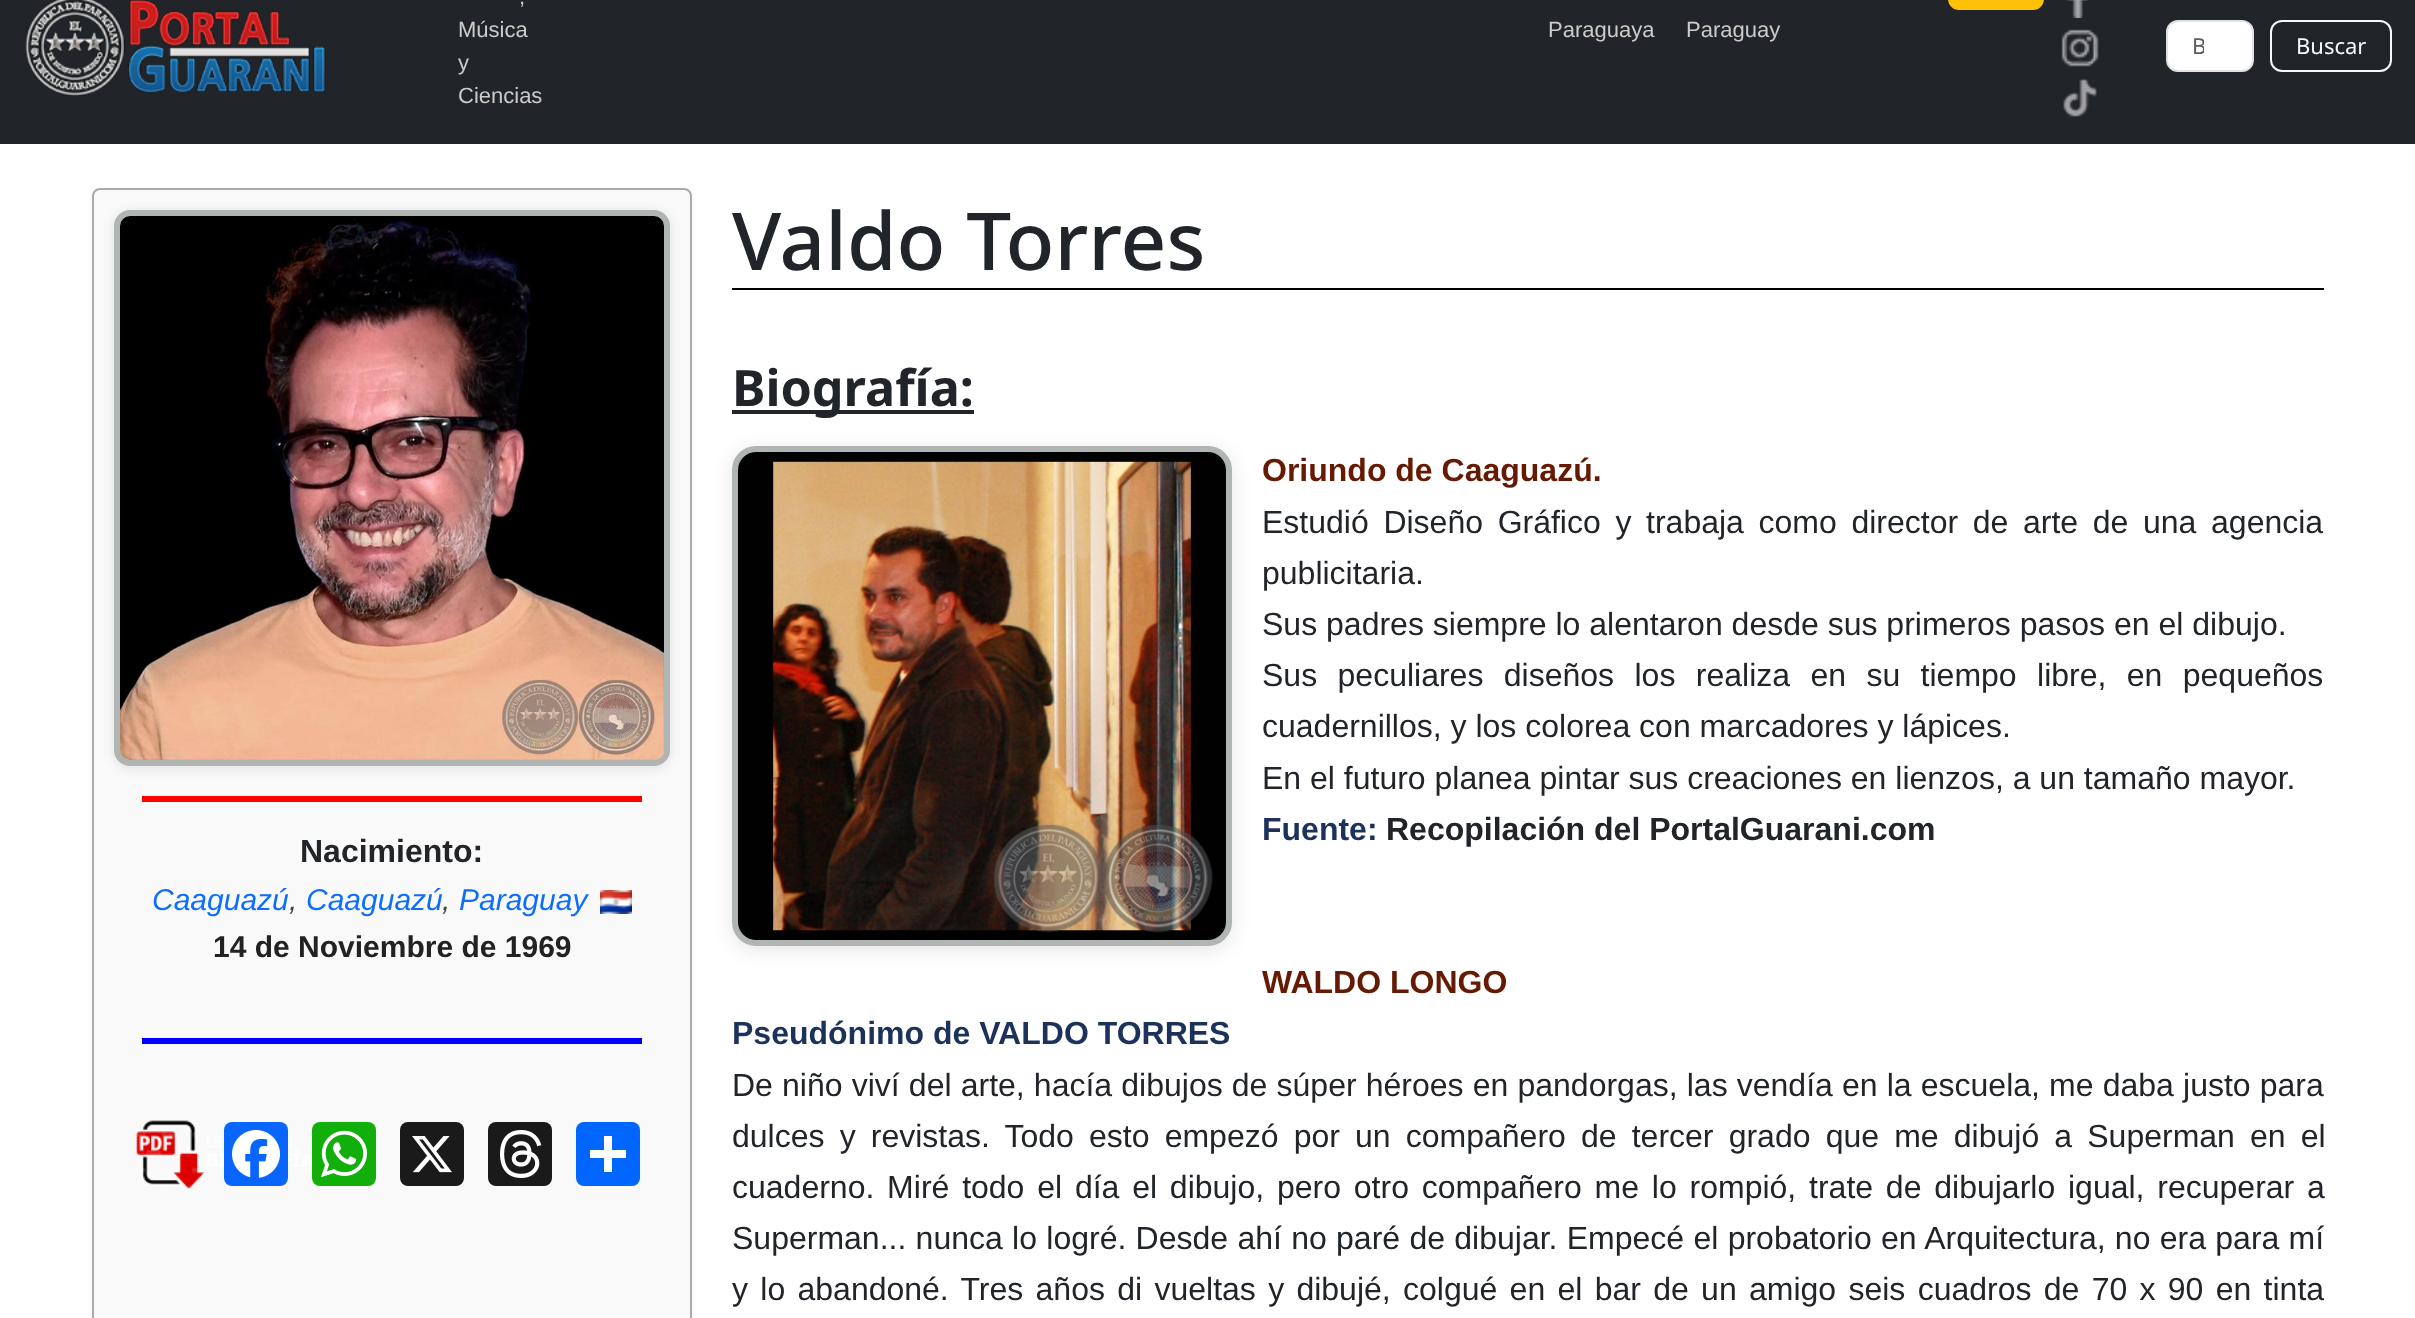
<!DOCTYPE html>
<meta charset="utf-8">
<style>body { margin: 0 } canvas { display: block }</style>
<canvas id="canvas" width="2415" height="1318"></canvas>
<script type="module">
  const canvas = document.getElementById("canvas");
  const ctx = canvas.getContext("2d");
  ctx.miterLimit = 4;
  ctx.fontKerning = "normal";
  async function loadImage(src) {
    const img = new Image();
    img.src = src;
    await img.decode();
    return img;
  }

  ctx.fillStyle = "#ffffff";
  ctx.fillRect(0, 0, 2415, 1318);
  ctx.fillStyle = "#212529";
  ctx.fillRect(0, 0, 2415, 144);
  ctx.drawImage(await loadImage("img1.png"), 25, 0, 301, 96);
  ctx.font = "22px Liberation Sans";
  ctx.fillStyle = "#cccccc";
  ctx.fillText(",", 519, 4);
  ctx.fillText("Música", 458, 37);
  ctx.fillText("y", 458, 70);
  ctx.fillText("Ciencias", 458, 103);
  ctx.fillText("Paraguaya", 1548, 37);
  ctx.fillText("Paraguay", 1686, 37);
  ctx.fillStyle = "#ffc107";
  ctx.beginPath();
  ctx.roundRect(1948, -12, 96, 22, 12);
  ctx.fill();
  ctx.drawImage(await loadImage("img2.png"), 2066, 0, 23, 18);
  ctx.drawImage(await loadImage("img3.png"), 2061, 29, 38, 38);
  ctx.drawImage(await loadImage("img4.png"), 2063, 79, 34, 38);
  ctx.fillStyle = "#ffffff";
  ctx.beginPath();
  ctx.roundRect(2167, 21, 86, 50, 11);
  ctx.fill();
  ctx.strokeStyle = "#dee2e6";
  ctx.lineWidth = 2;
  ctx.stroke();
  ctx.save();
  ctx.beginPath();
  ctx.rect(2192, 30, 12, 30);
  ctx.clip();
  ctx.font = "22px Noto Sans";
  ctx.fillStyle = "#595c5f";
  ctx.fillText("B", 2192, 54);
  ctx.restore();
  ctx.beginPath();
  ctx.roundRect(2271, 21, 120, 50, 11);
  ctx.strokeStyle = "#f8f9fa";
  ctx.stroke();
  ctx.font = "22px Noto Sans";
  ctx.fillStyle = "#f8f9fa";
  ctx.fillText("Buscar", 2296, 54);
  ctx.font = "500 80px Noto Sans";
  ctx.fillStyle = "#212529";
  ctx.fillText("Valdo Torres", 732, 270);
  ctx.fillStyle = "rgba(0, 0, 0, 0.05)";
  ctx.filter = "blur(3px)";
  ctx.beginPath();
  ctx.roundRect(92, 190, 600, 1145, 8);
  ctx.fill();
  ctx.filter = "none";
  ctx.fillStyle = "#f9f9f9";
  ctx.beginPath();
  ctx.roundRect(93, 189, 598, 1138, 7);
  ctx.fill();
  ctx.strokeStyle = "#aaaaaa";
  ctx.stroke();
  ctx.fillStyle = "rgba(0, 0, 0, 0.1)";
  ctx.filter = "blur(6px)";
  ctx.beginPath();
  ctx.roundRect(114, 212, 556, 556, 16);
  ctx.fill();
  ctx.filter = "none";
  ctx.beginPath();
  ctx.roundRect(117, 213, 550, 550, 13);
  ctx.strokeStyle = "#b0b4b3";
  ctx.lineWidth = 6;
  ctx.stroke();
  ctx.drawImage(await loadImage("img5.png"), 120, 216, 544, 544);
  ctx.fillStyle = "#ff0000";
  ctx.fillRect(142, 796, 500, 6);
  ctx.font = "bold 32px Liberation Sans";
  ctx.fillStyle = "#212529";
  ctx.fillText("Nacimiento:", 300, 862);
  ctx.font = "italic 30px Liberation Sans";
  ctx.fillStyle = "#0d6efd";
  ctx.fillText("Caaguazú", 152, 910);
  ctx.fillStyle = "#444444";
  ctx.fillText(",", 289, 910);
  ctx.fillStyle = "#0d6efd";
  ctx.fillText("Caaguazú", 306, 910);
  ctx.fillStyle = "#444444";
  ctx.fillText(",", 442, 910);
  ctx.fillStyle = "#0d6efd";
  ctx.fillText("Paraguay", 459, 910);
  ctx.drawImage(await loadImage("img6.png"), 600, 890, 32, 24);
  ctx.font = "bold 30px Liberation Sans";
  ctx.fillStyle = "#222222";
  ctx.fillText("14 de Noviembre de 1969", 213, 957);
  ctx.fillStyle = "#0000ff";
  ctx.fillRect(142, 1038, 500, 6);
  ctx.drawImage(await loadImage("img7.png"), 136, 1120, 176, 69);
  ctx.fillStyle = "#0866ff";
  ctx.beginPath();
  ctx.roundRect(224, 1122, 64, 64, 8);
  ctx.fill();
  ctx.drawImage(await loadImage("img8.png"), 232, 1130, 48, 48);
  ctx.fillStyle = "#12af0a";
  ctx.beginPath();
  ctx.roundRect(312, 1122, 64, 64, 8);
  ctx.fill();
  ctx.drawImage(await loadImage("img9.png"), 321, 1130, 46, 48);
  ctx.fillStyle = "#1a1a1a";
  ctx.beginPath();
  ctx.roundRect(400, 1122, 64, 64, 8);
  ctx.fill();
  ctx.drawImage(await loadImage("img10.png"), 412, 1136, 40, 37);
  ctx.beginPath();
  ctx.roundRect(488, 1122, 64, 64, 8);
  ctx.fill();
  ctx.drawImage(await loadImage("img11.png"), 500, 1130, 42, 48);
  ctx.fillStyle = "#0166ff";
  ctx.beginPath();
  ctx.roundRect(576, 1122, 64, 64, 8);
  ctx.fill();
  ctx.fillStyle = "#ffffff";
  ctx.fillRect(604, 1136, 8, 36);
  ctx.fillRect(590, 1150, 36, 8);
  ctx.fillStyle = "#000000";
  ctx.fillRect(732, 288, 1592, 2);
  ctx.fillStyle = "#212529";
  ctx.fillRect(732, 410, 242, 4);
  ctx.font = "bold 50.25px Noto Sans";
  ctx.fillText("Biografía:", 732, 406);
  ctx.fillStyle = "rgba(0, 0, 0, 0.1)";
  ctx.filter = "blur(10px)";
  ctx.beginPath();
  ctx.roundRect(732, 450, 500, 500, 24);
  ctx.fill();
  ctx.filter = "none";
  ctx.beginPath();
  ctx.roundRect(735, 449, 494, 494, 21);
  ctx.stroke();
  ctx.drawImage(await loadImage("img12.png"), 738, 452, 488, 488);
  ctx.font = "bold 32px Liberation Sans";
  ctx.fillStyle = "#661903";
  ctx.fillText("Oriundo de Caaguazú.", 1262, 481);
  ctx.wordSpacing = "5.75px";
  ctx.font = "32px Liberation Sans";
  ctx.fillStyle = "#212529";
  ctx.fillText("Estudió Diseño Gráfico y trabaja como director de arte de una agencia", 1262, 533);
  ctx.wordSpacing = "0px";
  ctx.fillText("publicitaria.", 1262, 584);
  ctx.fillText("Sus padres siempre lo alentaron desde sus primeros pasos en el dibujo.", 1262, 635);
  ctx.wordSpacing = "11.5px";
  ctx.fillText("Sus peculiares diseños los realiza en su tiempo libre, en pequeños", 1262, 686);
  ctx.wordSpacing = "0px";
  ctx.fillText("cuadernillos, y los colorea con marcadores y lápices.", 1262, 737);
  ctx.fillText("En el futuro planea pintar sus creaciones en lienzos, a un tamaño mayor.", 1262, 789);
  ctx.font = "bold 32px Liberation Sans";
  ctx.fillStyle = "#1c325b";
  ctx.fillText("Fuente:", 1262, 840);
  ctx.fillStyle = "#212529";
  ctx.fillText("Recopilación del PortalGuarani.com", 1386, 840);
  ctx.fillStyle = "#661903";
  ctx.fillText("WALDO LONGO", 1262, 993);
  ctx.fillStyle = "#1c325b";
  ctx.fillText("Pseudónimo de VALDO TORRES", 732, 1044);
  ctx.wordSpacing = "0.25px";
  ctx.font = "32px Liberation Sans";
  ctx.fillStyle = "#212529";
  ctx.fillText("De niño viví del arte, hacía dibujos de súper héroes en pandorgas, las vendía en la escuela, me daba justo para", 732, 1096);
  ctx.wordSpacing = "6.25px";
  ctx.fillText("dulces y revistas. Todo esto empezó por un compañero de tercer grado que me dibujó a Superman en el", 732, 1147);
  ctx.wordSpacing = "3.9px";
  ctx.fillText("cuaderno. Miré todo el día el dibujo, pero otro compañero me lo rompió, trate de dibujarlo igual, recuperar a", 732, 1198);
  ctx.wordSpacing = "0.4px";
  ctx.fillText("Superman... nunca lo logré. Desde ahí no paré de dibujar. Empecé el probatorio en Arquitectura, no era para mí", 732, 1249);
  ctx.wordSpacing = "3.4px";
  ctx.fillText("y lo abandoné. Tres años di vueltas y dibujé, colgué en el bar de un amigo seis cuadros de 70 x 90 en tinta", 732, 1300);
</script>
